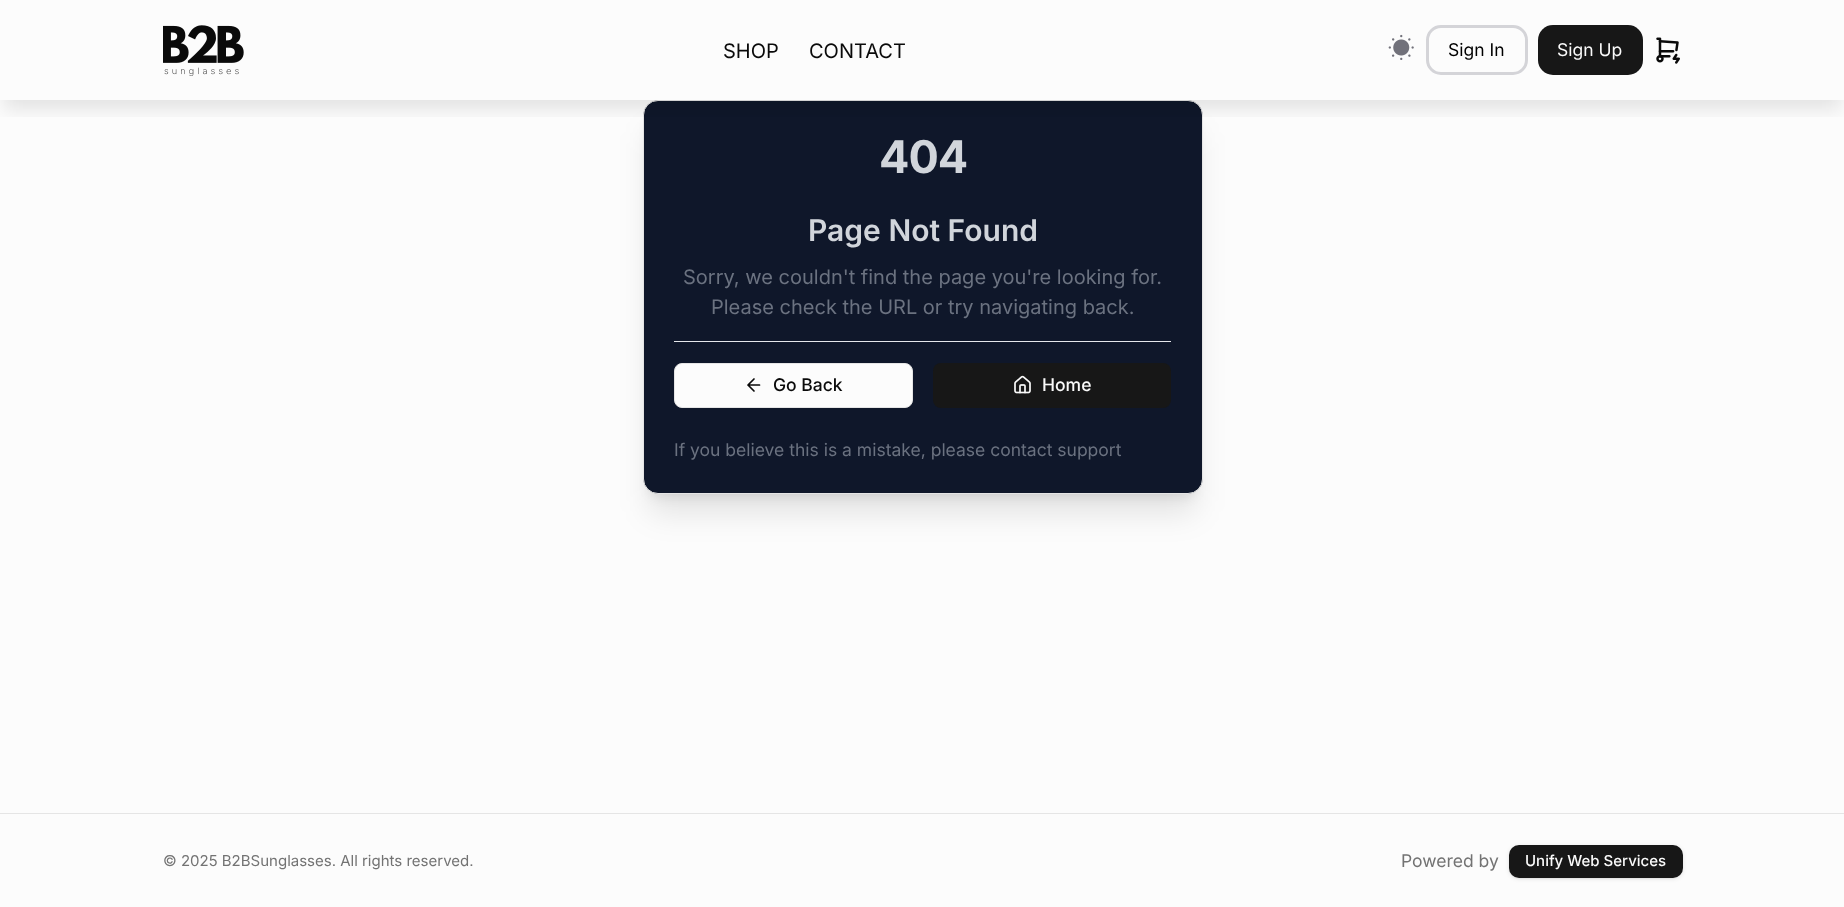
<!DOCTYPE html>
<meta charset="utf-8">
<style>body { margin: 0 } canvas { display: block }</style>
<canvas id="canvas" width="1844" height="907"></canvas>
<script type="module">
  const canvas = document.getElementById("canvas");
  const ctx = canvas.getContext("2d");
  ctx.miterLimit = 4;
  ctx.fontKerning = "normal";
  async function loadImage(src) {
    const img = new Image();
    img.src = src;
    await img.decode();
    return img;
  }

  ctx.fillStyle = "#fcfcfc";
  ctx.fillRect(0, 0, 1844, 907);
  ctx.fillStyle = "rgba(0, 0, 0, 0.1)";
  ctx.filter = "blur(6px)";
  ctx.beginPath();
  ctx.roundRect(650, 118, 545, 378, 8);
  ctx.fill();
  ctx.filter = "none";
  ctx.filter = "blur(15.5px)";
  ctx.beginPath();
  ctx.roundRect(649, 131, 547, 382, 9);
  ctx.fill();
  ctx.filter = "none";
  ctx.fillStyle = "#0f172a";
  ctx.beginPath();
  ctx.roundRect(643.5, 100.5, 559, 393, 14.5);
  ctx.fill();
  ctx.strokeStyle = "#e5e5e5";
  ctx.stroke();
  ctx.save();
  ctx.beginPath();
  ctx.rect(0, 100, 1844, 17);
  ctx.clip();
  ctx.fillStyle = "rgba(0, 0, 0, 0.1)";
  ctx.filter = "blur(9.5px)";
  ctx.beginPath();
  ctx.rect(4, 16, 1837, 93);
  ctx.fill();
  ctx.filter = "none";
  ctx.restore();
  ctx.drawImage(await loadImage("img1.png"), 163, 25, 81, 51);
  ctx.font = "20px Inter";
  ctx.fillStyle = "#0a0a0a";
  ctx.fillText("SHOP", 723, 58);
  ctx.fillText("CONTACT", 809, 58);
  ctx.drawImage(await loadImage("img2.png"), 1388, 34, 26, 26);
  ctx.beginPath();
  ctx.roundRect(1427.5, 26.5, 99, 47, 13.5);
  ctx.strokeStyle = "#d4d4d8";
  ctx.lineWidth = 3;
  ctx.stroke();
  ctx.font = "17.5px Inter";
  ctx.fillStyle = "#000000";
  ctx.fillText("Sign In", 1448, 56);
  ctx.fillStyle = "#171717";
  ctx.beginPath();
  ctx.roundRect(1538, 25, 105, 50, 15);
  ctx.fill();
  ctx.fillStyle = "#fafafa";
  ctx.fillText("Sign Up", 1557, 56);
  ctx.drawImage(await loadImage("img3.png"), 1656, 37, 24, 27);
  ctx.letterSpacing = "-1px";
  ctx.font = "bold 45px Inter";
  ctx.fillStyle = "#d1d5db";
  ctx.fillText("404", 879, 173);
  ctx.letterSpacing = "0px";
  ctx.font = "600 30px Inter";
  ctx.fillText("Page Not Found", 808, 241);
  ctx.font = "20px Inter";
  ctx.fillStyle = "#6b7280";
  ctx.fillText("Sorry, we couldn't find the page you're looking for.", 683, 284);
  ctx.fillText("Please check the URL or try navigating back.", 711, 314);
  ctx.fillStyle = "#e5e7eb";
  ctx.fillRect(674, 341, 497, 1);
  ctx.fillStyle = "#fcfcfc";
  ctx.beginPath();
  ctx.roundRect(674.5, 363.5, 238, 44, 7.5);
  ctx.fill();
  ctx.strokeStyle = "#e5e5e5";
  ctx.lineWidth = 1;
  ctx.stroke();
  ctx.beginPath();
  ctx.moveTo(754, 391);
  ctx.lineTo(748, 385);
  ctx.lineTo(754, 379);
  ctx.moveTo(759.5, 385);
  ctx.lineTo(748, 385);
  ctx.strokeStyle = "#0a0a0a";
  ctx.lineWidth = 1.7;
  ctx.lineCap = "round";
  ctx.lineJoin = "round";
  ctx.stroke();
  ctx.font = "500 17.5px Inter";
  ctx.fillStyle = "#0a0a0a";
  ctx.fillText("Go Back", 773, 391);
  ctx.fillStyle = "#171717";
  ctx.beginPath();
  ctx.roundRect(933, 363, 238, 45, 8);
  ctx.fill();
  ctx.drawImage(await loadImage("img4.png"), 1014, 375, 17, 19);
  ctx.fillStyle = "#fafafa";
  ctx.fillText("Home", 1042, 391);
  ctx.font = "17.5px Inter";
  ctx.fillStyle = "#6b7280";
  ctx.fillText("If you believe this is a mistake, please contact support", 674, 456);
  ctx.fillStyle = "#e5e5e5";
  ctx.fillRect(0, 813, 1844, 1);
  ctx.font = "15px Inter";
  ctx.fillStyle = "#737373";
  ctx.fillText("© 2025 B2BSunglasses. All rights reserved.", 163, 866);
  ctx.font = "17.5px Inter";
  ctx.fillText("Powered by", 1401, 867);
  ctx.fillStyle = "rgba(0, 0, 0, 0.1)";
  ctx.filter = "blur(1px)";
  ctx.beginPath();
  ctx.roundRect(1510, 848, 171, 30, 9);
  ctx.fill();
  ctx.filter = "none";
  ctx.filter = "blur(2px)";
  ctx.beginPath();
  ctx.roundRect(1509, 846, 174, 33, 10);
  ctx.fill();
  ctx.filter = "none";
  ctx.fillStyle = "#171717";
  ctx.beginPath();
  ctx.roundRect(1509, 845, 174, 33, 10);
  ctx.fill();
  ctx.font = "500 15px Inter";
  ctx.fillStyle = "#fafafa";
  ctx.fillText("Unify Web Services", 1525, 866);
</script>
